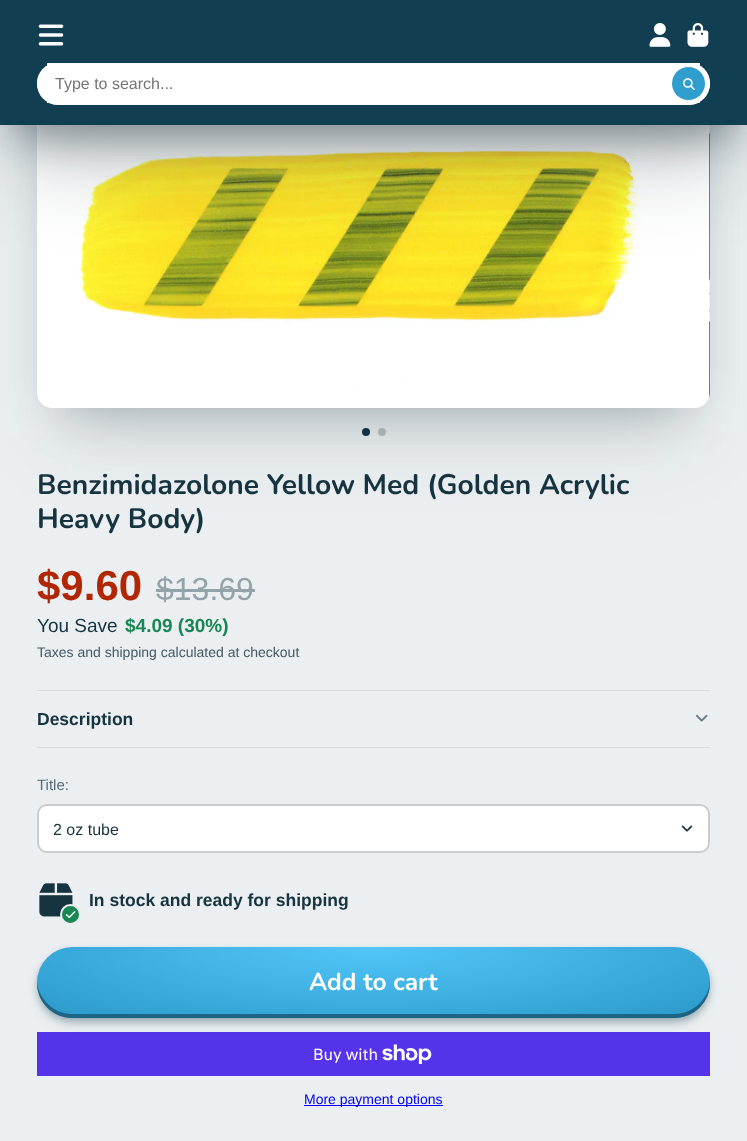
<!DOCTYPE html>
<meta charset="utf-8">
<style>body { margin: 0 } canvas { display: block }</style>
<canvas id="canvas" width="747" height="1141"></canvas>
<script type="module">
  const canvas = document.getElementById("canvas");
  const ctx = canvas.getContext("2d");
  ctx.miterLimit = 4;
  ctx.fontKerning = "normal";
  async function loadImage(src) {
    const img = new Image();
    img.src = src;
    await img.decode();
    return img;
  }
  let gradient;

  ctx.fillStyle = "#ebeff1";
  ctx.fillRect(0, 0, 747, 1141);
  ctx.fillStyle = "#163340";
  ctx.beginPath();
  ctx.arc(366, 432, 4, 0, Math.PI * 2);
  ctx.fill();
  ctx.fillStyle = "#bcbfc1";
  ctx.beginPath();
  ctx.arc(382, 432, 4, 0, Math.PI * 2);
  ctx.fill();
  ctx.fillStyle = "rgba(15, 36, 45, 0.3)";
  ctx.filter = "blur(26px)";
  ctx.beginPath();
  ctx.rect(63, 125, 621, 283);
  ctx.fill();
  ctx.filter = "none";
  ctx.fillStyle = "rgba(15, 36, 45, 0.1)";
  ctx.filter = "blur(44px)";
  ctx.beginPath();
  ctx.rect(55, 133, 638, 301);
  ctx.fill();
  ctx.filter = "none";
  ctx.drawImage(await loadImage("img5.png"), 37, 125, 672, 283);
  ctx.drawImage(await loadImage("img6.png"), 709, 125, 1, 273);
  ctx.fillStyle = "rgba(15, 36, 45, 0.4)";
  ctx.filter = "blur(19px)";
  ctx.beginPath();
  ctx.rect(14, 40, 719, 97);
  ctx.fill();
  ctx.filter = "none";
  ctx.fillStyle = "rgba(15, 36, 45, 0.3)";
  ctx.filter = "blur(44px)";
  ctx.beginPath();
  ctx.rect(14, 58, 719, 97);
  ctx.fill();
  ctx.filter = "none";
  ctx.fillStyle = "#123e51";
  ctx.fillRect(0, 0, 747, 125);
  ctx.drawImage(await loadImage("img1.png"), 38, 24, 26, 22);
  ctx.drawImage(await loadImage("img2.png"), 649, 23, 22, 24);
  ctx.drawImage(await loadImage("img3.png"), 687, 23, 22, 24);
  ctx.fillStyle = "#ffffff";
  ctx.beginPath();
  ctx.roundRect(37, 63, 673, 40, 20);
  ctx.fill();
  ctx.fillRect(47, 63, 653, 40);
  ctx.beginPath();
  ctx.roundRect(37, 63, 673, 42, 21);
  ctx.fill();
  ctx.font = "16px Liberation Sans";
  ctx.fillStyle = "#757575";
  ctx.fillText("Type to search...", 55, 89);
  ctx.fillStyle = "#2f9ecf";
  ctx.beginPath();
  ctx.arc(688.5, 83.5, 16.5, 0, Math.PI * 2);
  ctx.fill();
  ctx.drawImage(await loadImage("img4.png"), 683, 78, 12, 12);
  ctx.font = "bold 28.2px Nunito";
  ctx.fillStyle = "#163340";
  ctx.fillText("Benzimidazolone Yellow Med (Golden Acrylic", 37, 494);
  ctx.fillText("Heavy Body)", 37, 528);
  ctx.font = "bold 42px Liberation Sans";
  ctx.fillStyle = "#b12704";
  ctx.fillText("$9.60", 37, 600);
  ctx.font = "32px Liberation Sans";
  ctx.fillStyle = "#94a2a9";
  ctx.fillText("$13.69", 156, 600);
  ctx.fillRect(156, 589, 99, 3);
  ctx.font = "19px Liberation Sans";
  ctx.fillStyle = "#163340";
  ctx.fillText("You Save", 37, 632);
  ctx.font = "bold 19px Liberation Sans";
  ctx.fillStyle = "#198754";
  ctx.fillText("$4.09 (30%)", 125, 632);
  ctx.font = "14px Liberation Sans";
  ctx.fillStyle = "#415963";
  ctx.fillText("Taxes and shipping calculated at checkout", 37, 657);
  ctx.fillStyle = "#d9d9d9";
  ctx.fillRect(37, 690, 673, 1);
  ctx.fillRect(37, 747, 673, 1);
  ctx.font = "bold 17.5px Liberation Sans";
  ctx.fillStyle = "#163340";
  ctx.fillText("Description", 37, 725);
  ctx.drawImage(await loadImage("img7.png"), 696, 714, 12, 8);
  ctx.font = "15px Liberation Sans";
  ctx.fillStyle = "#566b75";
  ctx.fillText("Title:", 37, 790);
  ctx.fillStyle = "#ffffff";
  ctx.beginPath();
  ctx.roundRect(38, 805, 671, 47, 9);
  ctx.fill();
  ctx.strokeStyle = "#cccccc";
  ctx.lineWidth = 2;
  ctx.stroke();
  ctx.font = "16px Liberation Sans";
  ctx.fillStyle = "#163340";
  ctx.fillText("2 oz tube", 53, 835);
  ctx.drawImage(await loadImage("img8.png"), 681, 825, 12, 7);
  ctx.drawImage(await loadImage("img9.png"), 39, 883, 34, 34);
  ctx.fillStyle = "#198754";
  ctx.beginPath();
  ctx.arc(70.5, 914.5, 9.5, 0, Math.PI * 2);
  ctx.fill();
  ctx.strokeStyle = "#ededed";
  ctx.stroke();
  ctx.drawImage(await loadImage("img10.png"), 65, 911, 11, 7);
  ctx.font = "bold 17.5px Liberation Sans";
  ctx.fillStyle = "#163340";
  ctx.fillText("In stock and ready for shipping", 89, 906);
  ctx.fillStyle = "#5433eb";
  ctx.fillRect(37, 1032, 673, 44);
  ctx.drawImage(await loadImage("img11.png"), 382, 1044, 50, 20);
  ctx.fillStyle = "rgba(19, 63, 82, 0.15)";
  ctx.filter = "blur(7.5px)";
  ctx.beginPath();
  ctx.roundRect(41, 958, 665, 64, 32);
  ctx.fill();
  ctx.filter = "none";
  ctx.fillStyle = "rgba(19, 63, 82, 0.3)";
  ctx.filter = "blur(3.5px)";
  ctx.beginPath();
  ctx.roundRect(37, 951, 673, 71, 35.5);
  ctx.fill();
  ctx.filter = "none";
  ctx.save();
  ctx.beginPath();
  ctx.roundRect(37, 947, 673, 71, 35.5);
  ctx.clip();
  ctx.fillStyle = "rgba(19, 63, 82, 0.15)";
  ctx.filter = "blur(7.5px)";
  ctx.beginPath();
  ctx.roundRect(41, 958, 665, 64, 32);
  ctx.fill();
  ctx.filter = "none";
  ctx.fillStyle = "rgba(19, 63, 82, 0.3)";
  ctx.filter = "blur(3.5px)";
  ctx.beginPath();
  ctx.roundRect(37, 951, 673, 71, 35.5);
  ctx.fill();
  ctx.filter = "none";
  ctx.restore();
  gradient = ctx.createRadialGradient(374, 4507.72, 0, 374, 4507.72, 476);
  gradient.addColorStop(0, "#52c6f9");
  gradient.addColorStop(0.9, "#2f9ecf");
  ctx.fillStyle = gradient;
  ctx.beginPath();
  ctx.roundRect(37, 947, 673, 71, 35.5);
  ctx.save();
  ctx.clip();
  ctx.scale(1, 100 / 476);
  ctx.fillRect(0, 0, 747, 5432);
  ctx.restore();
  ctx.fillStyle = "#1e6584";
  ctx.beginPath();
  ctx.moveTo(37, 981);
  ctx.bezierCurveTo(36, 1001, 52, 1018, 72, 1018);
  ctx.lineTo(674, 1018);
  ctx.bezierCurveTo(695, 1018, 711, 1001, 710, 981);
  ctx.bezierCurveTo(709, 999, 693, 1014, 674, 1014);
  ctx.lineTo(72, 1014);
  ctx.bezierCurveTo(54, 1014, 38, 999, 37, 981);
  ctx.closePath();
  ctx.fill();
  ctx.font = "bold 24.5px Nunito";
  ctx.fillStyle = "#ffffff";
  ctx.fillText("Add to cart", 309, 990);
  ctx.font = "16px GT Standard";
  ctx.fillText("Buy with", 313, 1060);
  ctx.fillStyle = "#0000ee";
  ctx.fillRect(304, 1105, 139, 1);
  ctx.font = "14px Liberation Sans";
  ctx.fillText("More payment options", 304, 1104);
</script>
